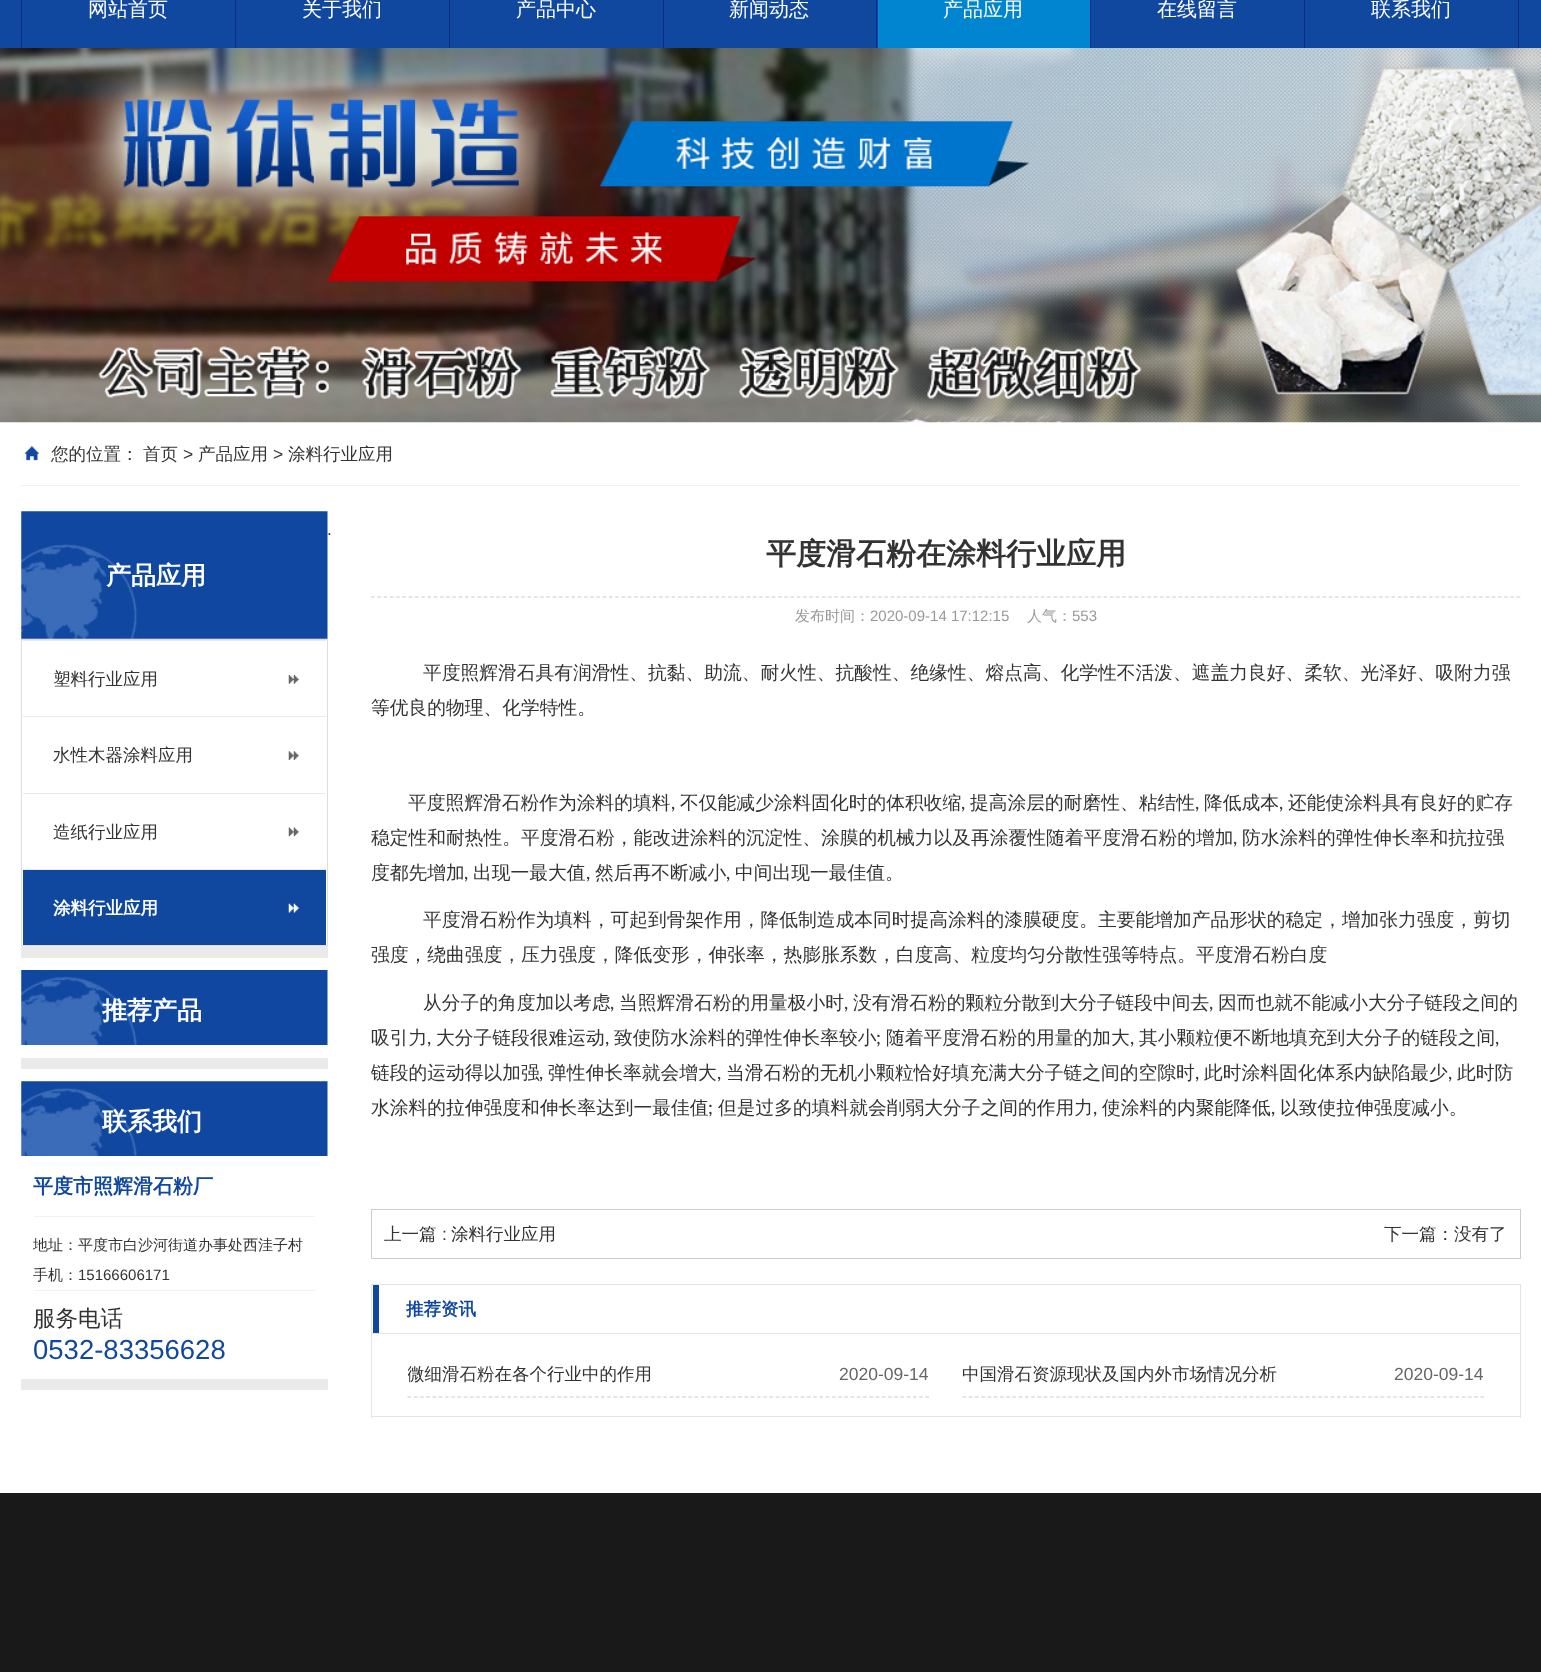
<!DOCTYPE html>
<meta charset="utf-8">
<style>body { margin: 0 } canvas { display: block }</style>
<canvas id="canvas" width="1541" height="1672"></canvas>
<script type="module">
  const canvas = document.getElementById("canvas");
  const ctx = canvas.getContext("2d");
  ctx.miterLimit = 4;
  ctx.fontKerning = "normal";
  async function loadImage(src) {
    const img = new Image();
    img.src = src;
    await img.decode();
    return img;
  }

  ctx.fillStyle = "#ffffff";
  ctx.fillRect(0, 0, 1541, 1672);
  ctx.fillStyle = "#1048a0";
  ctx.fillRect(0, 0, 1541, 48);
  ctx.fillStyle = "#0b2d7e";
  ctx.fillRect(235, 0, 1, 48);
  ctx.fillRect(21, 0, 1, 48);
  ctx.font = "500 20px WenQuanYi Zen Hei";
  ctx.fillStyle = "#ffffff";
  ctx.fillText("网站首页", 88, 16);
  ctx.fillStyle = "#0b2d7e";
  ctx.fillRect(449, 0, 1, 48);
  ctx.fillStyle = "#ffffff";
  ctx.fillText("关于我们", 302, 16);
  ctx.fillStyle = "#0b2d7e";
  ctx.fillRect(663, 0, 1, 48);
  ctx.fillStyle = "#ffffff";
  ctx.fillText("产品中心", 516, 16);
  ctx.fillStyle = "#0b2d7e";
  ctx.fillRect(876, 0, 1, 48);
  ctx.fillStyle = "#ffffff";
  ctx.fillText("新闻动态", 729, 16);
  ctx.fillStyle = "#0b2d7e";
  ctx.fillRect(1090, 0, 1, 48);
  ctx.fillStyle = "#0185d0";
  ctx.fillRect(878, 0, 212, 48);
  ctx.fillStyle = "#ffffff";
  ctx.fillText("产品应用", 943, 16);
  ctx.fillStyle = "#0b2d7e";
  ctx.fillRect(1304, 0, 1, 48);
  ctx.fillStyle = "#ffffff";
  ctx.fillText("在线留言", 1157, 16);
  ctx.fillStyle = "#0b2d7e";
  ctx.fillRect(1518, 0, 1, 48);
  ctx.fillStyle = "#ffffff";
  ctx.fillText("联系我们", 1371, 16);
  ctx.drawImage(await loadImage("img1.png"), 0, 48, 1541, 375);
  ctx.fillStyle = "#f1f1f1";
  ctx.fillRect(21, 485, 1500, 1);
  ctx.drawImage(await loadImage("img2.png"), 24, 446, 15, 15);
  ctx.font = "500 17.5px WenQuanYi Zen Hei";
  ctx.fillStyle = "#333333";
  ctx.fillText("您的位置：", 51, 460);
  ctx.fillText("首页", 143, 460);
  ctx.font = "17.5px Liberation Sans";
  ctx.fillText(">", 183, 460);
  ctx.font = "500 17.5px WenQuanYi Zen Hei";
  ctx.fillText("产品应用", 198, 460);
  ctx.font = "17.5px Liberation Sans";
  ctx.fillText(">", 273, 460);
  ctx.font = "500 17.5px WenQuanYi Zen Hei";
  ctx.fillText("涂料行业应用", 288, 460);
  ctx.font = "17.5px Liberation Sans";
  ctx.fillText(".", 327, 535);
  ctx.fillStyle = "#eaeaea";
  ctx.fillRect(21, 946, 307, 12);
  ctx.drawImage(await loadImage("img3.png"), 21, 511, 307, 128);
  ctx.font = "bold 25px WenQuanYi Zen Hei";
  ctx.fillStyle = "#ffffff";
  ctx.fillText("产品应用", 106, 584);
  ctx.strokeStyle = "#dddddd";
  ctx.strokeRect(21.5, 639.5, 306, 306);
  ctx.drawImage(await loadImage("img4.png"), 288, 675, 11, 9);
  ctx.fillStyle = "#eaeaea";
  ctx.fillRect(23, 640, 303, 1);
  ctx.font = "500 17.5px WenQuanYi Zen Hei";
  ctx.fillStyle = "#333333";
  ctx.fillText("塑料行业应用", 53, 685);
  ctx.drawImage(await loadImage("img5.png"), 288, 751, 11, 9);
  ctx.fillStyle = "#eaeaea";
  ctx.fillRect(23, 716, 303, 1);
  ctx.fillStyle = "#333333";
  ctx.fillText("水性木器涂料应用", 53, 761);
  ctx.drawImage(await loadImage("img6.png"), 288, 827, 11, 10);
  ctx.fillStyle = "#eaeaea";
  ctx.fillRect(23, 793, 303, 1);
  ctx.fillStyle = "#333333";
  ctx.fillText("造纸行业应用", 53, 838);
  ctx.fillStyle = "#1048a0";
  ctx.fillRect(23, 870, 303, 75);
  ctx.drawImage(await loadImage("img7.png"), 288, 903, 11, 10);
  ctx.fillStyle = "#eaeaea";
  ctx.fillRect(23, 869, 303, 1);
  ctx.font = "bold 17.5px WenQuanYi Zen Hei";
  ctx.fillStyle = "#ffffff";
  ctx.fillText("涂料行业应用", 53, 914);
  ctx.fillStyle = "#eaeaea";
  ctx.fillRect(21, 1058, 307, 11);
  ctx.drawImage(await loadImage("img8.png"), 21, 970, 307, 75);
  ctx.font = "bold 25px WenQuanYi Zen Hei";
  ctx.fillStyle = "#ffffff";
  ctx.fillText("推荐产品", 102, 1019);
  ctx.fillStyle = "#eaeaea";
  ctx.fillRect(21, 1379, 307, 11);
  ctx.drawImage(await loadImage("img9.png"), 21, 1081, 307, 75);
  ctx.fillStyle = "#ffffff";
  ctx.fillText("联系我们", 102, 1130);
  ctx.fillStyle = "#f2f2f2";
  ctx.fillRect(34, 1216, 281, 1);
  ctx.font = "bold 20px WenQuanYi Zen Hei";
  ctx.fillStyle = "#1048a0";
  ctx.fillText("平度市照辉滑石粉厂", 33, 1193);
  ctx.fillStyle = "#f2f2f2";
  ctx.fillRect(34, 1290, 281, 1);
  ctx.font = "500 15px WenQuanYi Zen Hei";
  ctx.fillStyle = "#333333";
  ctx.fillText("地址：平度市白沙河街道办事处西洼子村", 33, 1250);
  ctx.fillText("手机：", 33, 1280);
  ctx.font = "15px Liberation Sans";
  ctx.fillText("15166606171", 78, 1280);
  ctx.font = "500 22.5px WenQuanYi Zen Hei";
  ctx.fillText("服务电话", 33, 1326);
  ctx.font = "27.5px Liberation Sans";
  ctx.fillStyle = "#1048a0";
  ctx.fillText("0532-83356628", 33, 1359);
  ctx.beginPath();
  ctx.moveTo(371, 597);
  ctx.lineTo(1521, 597);
  ctx.strokeStyle = "#cccccc";
  ctx.lineWidth = 1.2;
  ctx.setLineDash([3.75, 2.51]);
  ctx.stroke();
  ctx.font = "bold 30px WenQuanYi Zen Hei";
  ctx.fillStyle = "#333333";
  ctx.fillText("平度滑石粉在涂料行业应用", 766, 564);
  ctx.font = "500 15px WenQuanYi Zen Hei";
  ctx.fillStyle = "#999999";
  ctx.fillText("发布时间：", 795, 621);
  ctx.font = "15px Liberation Sans";
  ctx.fillText("2020-09-14 17:12:15", 870, 621);
  ctx.font = "500 15px WenQuanYi Zen Hei";
  ctx.fillText("人气：", 1027, 621);
  ctx.font = "15px Liberation Sans";
  ctx.fillText("553", 1072, 621);
  ctx.font = "500 18.75px WenQuanYi Zen Hei";
  ctx.fillStyle = "#333333";
  ctx.fillText("平度照辉滑石具有润滑性、抗黏、助流、耐火性、抗酸性、绝缘性、熔点高、化学性不活泼、遮盖力良好、柔软、光泽好、吸附力强", 423, 679);
  ctx.fillText("等优良的物理、化学特性。", 371, 714);
  ctx.fillText("平度照辉滑石粉作为涂料的填料", 408, 809);
  ctx.font = "18.75px Lato";
  ctx.fillText(",", 671, 809);
  ctx.font = "500 18.75px WenQuanYi Zen Hei";
  ctx.fillText("不仅能减少涂料固化时的体积收缩", 680, 809);
  ctx.font = "18.75px Lato";
  ctx.fillText(",", 961, 809);
  ctx.font = "500 18.75px WenQuanYi Zen Hei";
  ctx.fillText("提高涂层的耐磨性、粘结性", 970, 809);
  ctx.font = "18.75px Lato";
  ctx.fillText(",", 1195, 809);
  ctx.font = "500 18.75px WenQuanYi Zen Hei";
  ctx.fillText("降低成本", 1204, 809);
  ctx.font = "18.75px Lato";
  ctx.fillText(",", 1279, 809);
  ctx.font = "500 18.75px WenQuanYi Zen Hei";
  ctx.fillText("还能使涂料具有良好的贮存", 1288, 809);
  ctx.fillText("稳定性和耐热性。平度滑石粉，能改进涂料的沉淀性、涂膜的机械力以及再涂覆性随着平度滑石粉的增加", 371, 844);
  ctx.font = "18.75px Lato";
  ctx.fillText(",", 1233, 844);
  ctx.font = "500 18.75px WenQuanYi Zen Hei";
  ctx.fillText("防水涂料的弹性伸长率和抗拉强", 1242, 844);
  ctx.fillText("度都先增加", 371, 879);
  ctx.font = "18.75px Lato";
  ctx.fillText(",", 464, 879);
  ctx.font = "500 18.75px WenQuanYi Zen Hei";
  ctx.fillText("出现一最大值", 473, 879);
  ctx.font = "18.75px Lato";
  ctx.fillText(",", 586, 879);
  ctx.font = "500 18.75px WenQuanYi Zen Hei";
  ctx.fillText("然后再不断减小", 595, 879);
  ctx.font = "18.75px Lato";
  ctx.fillText(",", 726, 879);
  ctx.font = "500 18.75px WenQuanYi Zen Hei";
  ctx.fillText("中间出现一最佳值。", 735, 879);
  ctx.fillText("平度滑石粉作为填料，可起到骨架作用，降低制造成本同时提高涂料的漆膜硬度。主要能增加产品形状的稳定，增加张力强度，剪切", 423, 926);
  ctx.fillText("强度，绕曲强度，压力强度，降低变形，伸张率，热膨胀系数，白度高、粒度均匀分散性强等特点。平度滑石粉白度", 371, 961);
  ctx.fillText("从分子的角度加以考虑", 423, 1009);
  ctx.font = "18.75px Lato";
  ctx.fillText(",", 610, 1009);
  ctx.font = "500 18.75px WenQuanYi Zen Hei";
  ctx.fillText("当照辉滑石粉的用量极小时", 619, 1009);
  ctx.font = "18.75px Lato";
  ctx.fillText(",", 844, 1009);
  ctx.font = "500 18.75px WenQuanYi Zen Hei";
  ctx.fillText("没有滑石粉的颗粒分散到大分子链段中间去", 853, 1009);
  ctx.font = "18.75px Lato";
  ctx.fillText(",", 1209, 1009);
  ctx.font = "500 18.75px WenQuanYi Zen Hei";
  ctx.fillText("因而也就不能减小大分子链段之间的", 1218, 1009);
  ctx.fillText("吸引力", 371, 1044);
  ctx.font = "18.75px Lato";
  ctx.fillText(",", 427, 1044);
  ctx.font = "500 18.75px WenQuanYi Zen Hei";
  ctx.fillText("大分子链段很难运动", 436, 1044);
  ctx.font = "18.75px Lato";
  ctx.fillText(",", 605, 1044);
  ctx.font = "500 18.75px WenQuanYi Zen Hei";
  ctx.fillText("致使防水涂料的弹性伸长率较小", 614, 1044);
  ctx.font = "18.75px Lato";
  ctx.fillText(";", 876, 1044);
  ctx.font = "500 18.75px WenQuanYi Zen Hei";
  ctx.fillText("随着平度滑石粉的用量的加大", 886, 1044);
  ctx.font = "18.75px Lato";
  ctx.fillText(",", 1130, 1044);
  ctx.font = "500 18.75px WenQuanYi Zen Hei";
  ctx.fillText("其小颗粒便不断地填充到大分子的链段之间", 1139, 1044);
  ctx.font = "18.75px Lato";
  ctx.fillText(",", 1495, 1044);
  ctx.font = "500 18.75px WenQuanYi Zen Hei";
  ctx.fillText("链段的运动得以加强", 371, 1079);
  ctx.font = "18.75px Lato";
  ctx.fillText(",", 539, 1079);
  ctx.font = "500 18.75px WenQuanYi Zen Hei";
  ctx.fillText("弹性伸长率就会增大", 548, 1079);
  ctx.font = "18.75px Lato";
  ctx.fillText(",", 717, 1079);
  ctx.font = "500 18.75px WenQuanYi Zen Hei";
  ctx.fillText("当滑石粉的无机小颗粒恰好填充满大分子链之间的空隙时", 726, 1079);
  ctx.font = "18.75px Lato";
  ctx.fillText(",", 1195, 1079);
  ctx.font = "500 18.75px WenQuanYi Zen Hei";
  ctx.fillText("此时涂料固化体系内缺陷最少", 1204, 1079);
  ctx.font = "18.75px Lato";
  ctx.fillText(",", 1448, 1079);
  ctx.font = "500 18.75px WenQuanYi Zen Hei";
  ctx.fillText("此时防", 1457, 1079);
  ctx.fillText("水涂料的拉伸强度和伸长率达到一最佳值", 371, 1114);
  ctx.font = "18.75px Lato";
  ctx.fillText(";", 708, 1114);
  ctx.font = "500 18.75px WenQuanYi Zen Hei";
  ctx.fillText("但是过多的填料就会削弱大分子之间的作用力", 718, 1114);
  ctx.font = "18.75px Lato";
  ctx.fillText(",", 1093, 1114);
  ctx.font = "500 18.75px WenQuanYi Zen Hei";
  ctx.fillText("使涂料的内聚能降低", 1102, 1114);
  ctx.font = "18.75px Lato";
  ctx.fillText(",", 1271, 1114);
  ctx.font = "500 18.75px WenQuanYi Zen Hei";
  ctx.fillText("以致使拉伸强度减小。", 1280, 1114);
  ctx.lineWidth = 1;
  ctx.setLineDash([]);
  ctx.strokeRect(371.5, 1209.5, 1149, 49);
  ctx.font = "500 17.5px WenQuanYi Zen Hei";
  ctx.fillText("上一篇", 384, 1240);
  ctx.font = "17.5px Liberation Sans";
  ctx.fillText(":", 442, 1240);
  ctx.font = "500 17.5px WenQuanYi Zen Hei";
  ctx.fillText("涂料行业应用", 451, 1240);
  ctx.fillText("下一篇：没有了", 1384, 1240);
  ctx.strokeStyle = "#e4e4e4";
  ctx.strokeRect(371.5, 1284.5, 1149, 49);
  ctx.fillStyle = "#1048a0";
  ctx.fillRect(373, 1285, 6, 48);
  ctx.font = "bold 17.5px WenQuanYi Zen Hei";
  ctx.fillText("推荐资讯", 406, 1315);
  ctx.fillStyle = "#e4e4e4";
  ctx.fillRect(1520, 1334, 1, 84);
  ctx.fillRect(371, 1416, 1150, 1);
  ctx.fillRect(371, 1334, 1, 84);
  ctx.beginPath();
  ctx.moveTo(407.5, 1397);
  ctx.lineTo(929, 1397);
  ctx.strokeStyle = "#cccccc";
  ctx.lineWidth = 1.2;
  ctx.setLineDash([3.75, 2.49]);
  ctx.stroke();
  ctx.save();
  ctx.beginPath();
  ctx.rect(408, 1353, 245, 43);
  ctx.clip();
  ctx.font = "500 17.5px WenQuanYi Zen Hei";
  ctx.fillStyle = "#333333";
  ctx.fillText("微细滑石粉在各个行业中的作用", 407, 1380);
  ctx.restore();
  ctx.font = "17.5px Liberation Sans";
  ctx.fillStyle = "#666666";
  ctx.fillText("2020-09-14", 839, 1380);
  ctx.beginPath();
  ctx.moveTo(962.5, 1397);
  ctx.lineTo(1484, 1397);
  ctx.stroke();
  ctx.font = "500 17.5px WenQuanYi Zen Hei";
  ctx.fillStyle = "#333333";
  ctx.fillText("中国滑石资源现状及国内外市场情况分析", 962, 1380);
  ctx.font = "17.5px Liberation Sans";
  ctx.fillStyle = "#666666";
  ctx.fillText("2020-09-14", 1394, 1380);
  ctx.fillStyle = "#191919";
  ctx.fillRect(0, 1493, 1541, 179);
</script>
